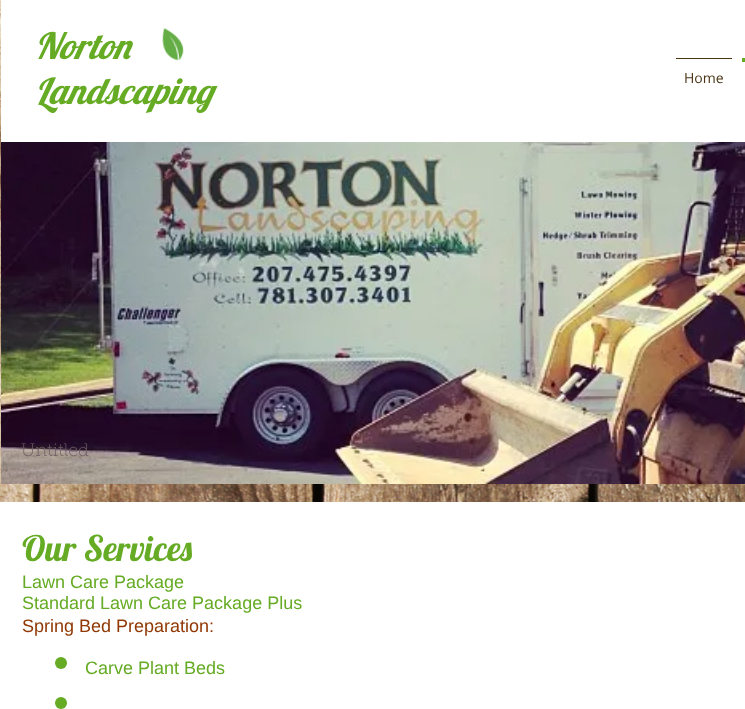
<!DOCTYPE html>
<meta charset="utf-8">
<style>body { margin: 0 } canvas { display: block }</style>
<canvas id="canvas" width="745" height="709"></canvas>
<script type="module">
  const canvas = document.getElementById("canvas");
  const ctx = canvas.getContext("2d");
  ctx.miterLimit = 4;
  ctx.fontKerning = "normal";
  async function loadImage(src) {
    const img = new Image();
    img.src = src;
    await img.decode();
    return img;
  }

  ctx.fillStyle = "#ffffff";
  ctx.fillRect(0, 0, 745, 709);
  ctx.drawImage(await loadImage("img1.png"), 0, 0, 745, 502);
  ctx.fillRect(1, 0, 744, 142);
  ctx.drawImage(await loadImage("img2.png"), 162, 27, 22, 34);
  ctx.font = "italic 36px Lobster";
  ctx.fillStyle = "#65ab24";
  ctx.fillText("Norton", 35, 59);
  ctx.fillText("Landscaping", 35, 104);
  ctx.fillRect(742, 58, 3, 4);
  ctx.fillStyle = "#493414";
  ctx.fillRect(676, 58, 56, 1);
  ctx.font = "14px Open Sans";
  ctx.fillText("Home", 684, 83);
  ctx.drawImage(await loadImage("img3.png"), 1, 142, 744, 342);
  ctx.font = "100 18px 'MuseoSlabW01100'";
  ctx.fillStyle = "#6e5d64";
  ctx.fillText("Untitled", 21, 456);
  ctx.font = "35px Lobster";
  ctx.fillStyle = "#65ab24";
  ctx.fillText("Our Services", 22, 561);
  ctx.font = "18px Liberation Sans";
  ctx.fillText("Lawn Care Package", 22, 588);
  ctx.fillText("Standard Lawn Care Package Plus", 22, 609);
  ctx.fillStyle = "#913804";
  ctx.fillText("Spring Bed Preparation:", 22, 632);
  ctx.fillStyle = "#65ab24";
  ctx.beginPath();
  ctx.arc(61, 663, 6, 0, Math.PI * 2);
  ctx.fill();
  ctx.fillText("Carve Plant Beds", 85, 674);
  ctx.beginPath();
  ctx.arc(61, 703, 6, 0, Math.PI * 2);
  ctx.fill();
</script>
